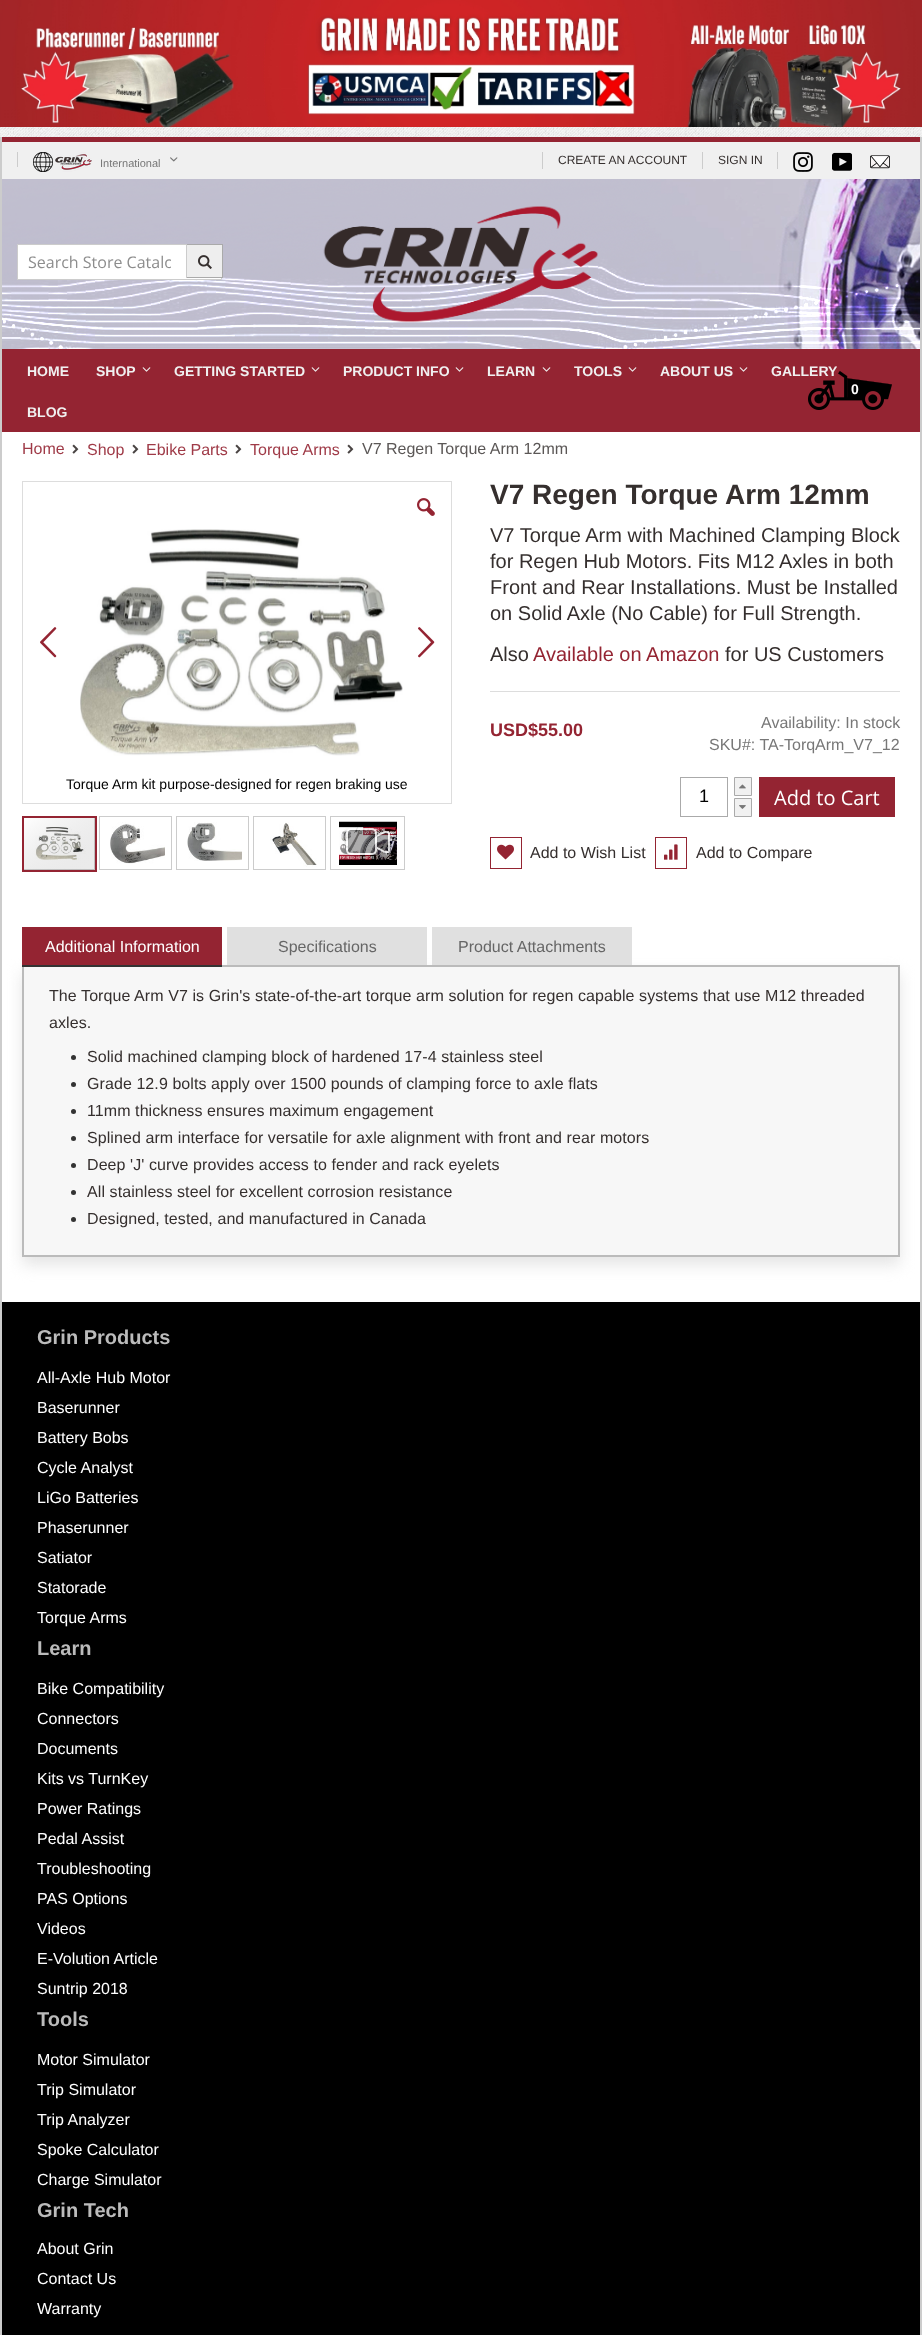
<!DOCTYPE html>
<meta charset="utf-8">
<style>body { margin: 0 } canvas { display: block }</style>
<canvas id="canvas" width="922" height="2335"></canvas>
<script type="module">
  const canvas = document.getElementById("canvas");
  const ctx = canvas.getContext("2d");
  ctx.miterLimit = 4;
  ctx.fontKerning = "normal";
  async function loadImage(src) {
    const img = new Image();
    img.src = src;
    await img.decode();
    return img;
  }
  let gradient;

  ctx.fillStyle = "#ffffff";
  ctx.fillRect(0, 0, 922, 2335);
  ctx.drawImage(await loadImage("img1.png"), 0, 127, 922, 10);
  ctx.drawImage(await loadImage("img2.png"), 0, 0, 922, 127);
  ctx.fillStyle = "#cccccc";
  ctx.fillRect(920, 137, 2, 2198);
  ctx.fillRect(0, 137, 2, 2198);
  ctx.drawImage(await loadImage("img3.png"), 2, 179, 918, 170);
  ctx.fillStyle = "#942432";
  ctx.fillRect(2, 137, 918, 5);
  ctx.fillStyle = "#f0f0f0";
  ctx.fillRect(2, 142, 918, 37);
  ctx.fillStyle = "#cccccc";
  ctx.fillRect(17, 152, 1, 15);
  ctx.drawImage(await loadImage("img4.png"), 33, 152, 59, 20);
  ctx.font = "11px Liberation Sans";
  ctx.fillStyle = "#777777";
  ctx.fillText("International", 100, 167);
  ctx.drawImage(await loadImage("img5.png"), 170, 157, 8, 5);
  ctx.fillStyle = "#cccccc";
  ctx.fillRect(542, 152, 1, 17);
  ctx.font = "12px Liberation Sans";
  ctx.fillStyle = "#352f2e";
  ctx.fillText("CREATE AN ACCOUNT", 558, 164);
  ctx.fillStyle = "#cccccc";
  ctx.fillRect(777, 152, 1, 17);
  ctx.fillRect(702, 152, 1, 17);
  ctx.fillStyle = "#352f2e";
  ctx.fillText("SIGN IN", 718, 164);
  ctx.drawImage(await loadImage("img6.png"), 793, 152, 20, 20);
  ctx.drawImage(await loadImage("img7.png"), 832, 152, 20, 19);
  ctx.drawImage(await loadImage("img8.png"), 870, 155, 20, 14);
  ctx.fillStyle = "#ffffff";
  ctx.beginPath();
  ctx.rect(17.5, 244.5, 204, 35);
  ctx.fill();
  ctx.strokeStyle = "#cccccc";
  ctx.stroke();
  ctx.save();
  ctx.beginPath();
  ctx.rect(28, 251, 143, 22);
  ctx.clip();
  ctx.font = "16px Open Sans";
  ctx.fillStyle = "#8d8d8d";
  ctx.fillText("Search Store Catalo", 28, 268);
  ctx.restore();
  ctx.fillStyle = "#eeeeee";
  ctx.fillRect(187, 245, 35, 32);
  ctx.fillStyle = "#aaaaaa";
  ctx.fillRect(186, 244, 37, 1);
  ctx.fillRect(222, 244, 1, 34);
  ctx.fillRect(186, 277, 37, 1);
  ctx.fillStyle = "#cccccc";
  ctx.fillRect(186, 244, 1, 34);
  ctx.drawImage(await loadImage("img9.png"), 198, 255, 14, 14);
  ctx.drawImage(await loadImage("img10.png"), 323, 206, 275, 117);
  ctx.fillStyle = "#942432";
  ctx.fillRect(2, 349, 918, 83);
  ctx.font = "bold 14px Liberation Sans";
  ctx.fillStyle = "#f0f0f0";
  ctx.fillText("HOME", 27, 376);
  ctx.fillText("SHOP", 96, 376);
  ctx.drawImage(await loadImage("img11.png"), 142, 367, 9, 5);
  ctx.fillText("GETTING STARTED", 174, 376);
  ctx.drawImage(await loadImage("img11.png"), 311, 367, 9, 5);
  ctx.fillText("PRODUCT INFO", 343, 376);
  ctx.drawImage(await loadImage("img11.png"), 455, 367, 9, 5);
  ctx.fillText("LEARN", 487, 376);
  ctx.drawImage(await loadImage("img11.png"), 542, 367, 9, 5);
  ctx.fillText("TOOLS", 574, 376);
  ctx.drawImage(await loadImage("img11.png"), 628, 367, 9, 5);
  ctx.fillText("ABOUT US", 660, 376);
  ctx.drawImage(await loadImage("img11.png"), 739, 367, 9, 5);
  ctx.fillText("GALLERY", 771, 376);
  ctx.fillText("BLOG", 27, 417);
  ctx.drawImage(await loadImage("img12.png"), 808, 371, 84, 39);
  ctx.fillStyle = "#ffffff";
  ctx.fillText("0", 851, 394);
  ctx.font = "16px Liberation Sans";
  ctx.fillStyle = "#9f3a47";
  ctx.fillText("Home", 22, 454);
  ctx.drawImage(await loadImage("img13.png"), 72, 444, 7, 10);
  ctx.fillText("Shop", 87, 455);
  ctx.drawImage(await loadImage("img13.png"), 132, 444, 7, 10);
  ctx.fillText("Ebike Parts", 146, 455);
  ctx.drawImage(await loadImage("img13.png"), 235, 444, 7, 10);
  ctx.fillText("Torque Arms", 250, 455);
  ctx.drawImage(await loadImage("img13.png"), 347, 444, 7, 10);
  ctx.fillStyle = "#5b5756";
  ctx.fillText("V7 Regen Torque Arm 12mm", 362, 454);
  ctx.strokeStyle = "#dddddd";
  ctx.strokeRect(22.5, 481.5, 429, 322);
  ctx.drawImage(await loadImage("img14.png"), 417, 498, 18, 18);
  ctx.drawImage(await loadImage("img15.png"), 40, 627, 17, 31);
  ctx.drawImage(await loadImage("img16.png"), 418, 627, 17, 31);
  ctx.drawImage(await loadImage("img17.png"), 80, 529, 323, 227);
  ctx.font = "14px Liberation Sans";
  ctx.fillStyle = "#000000";
  ctx.fillText("Torque Arm kit purpose-designed for regen braking use", 66, 789);
  ctx.strokeStyle = "#cccccc";
  ctx.strokeRect(22.5, 816.5, 72, 53);
  ctx.drawImage(await loadImage("img18.png"), 35, 827, 51, 33);
  gradient = ctx.createLinearGradient(35, 810, 84, 878);
  gradient.addColorStop(0, "rgba(255, 255, 255, 0.25)");
  gradient.addColorStop(1, "rgba(64, 64, 64, 0.1)");
  ctx.fillStyle = gradient;
  ctx.fillRect(24, 818, 71, 52);
  ctx.strokeStyle = "#942432";
  ctx.lineWidth = 2;
  ctx.strokeRect(23, 817, 73, 54);
  ctx.strokeStyle = "#cccccc";
  ctx.lineWidth = 1;
  ctx.strokeRect(99.5, 816.5, 72, 53);
  ctx.drawImage(await loadImage("img19.png"), 110, 822, 55, 42);
  ctx.strokeRect(176.5, 816.5, 72, 53);
  ctx.drawImage(await loadImage("img20.png"), 187, 822, 55, 39);
  ctx.strokeRect(253.5, 816.5, 72, 53);
  ctx.drawImage(await loadImage("img21.png"), 270, 822, 47, 45);
  ctx.strokeRect(330.5, 816.5, 74, 53);
  ctx.drawImage(await loadImage("img22.png"), 339, 821, 58, 44);
  ctx.drawImage(await loadImage("img23.png"), 344, 827, 48, 31);
  ctx.font = "bold 28px Liberation Sans";
  ctx.fillStyle = "#352f2e";
  ctx.fillText("V7 Regen Torque Arm 12mm", 490, 504);
  ctx.font = "20px Liberation Sans";
  ctx.fillText("V7 Torque Arm with Machined Clamping Block", 490, 542);
  ctx.fillText("for Regen Hub Motors. Fits M12 Axles in both", 490, 568);
  ctx.fillText("Front and Rear Installations. Must be Installed", 490, 594);
  ctx.fillText("on Solid Axle (No Cable) for Full Strength.", 490, 620);
  ctx.fillText("Also", 490, 661);
  ctx.fillStyle = "#942432";
  ctx.fillText("Available on Amazon", 533, 661);
  ctx.fillStyle = "#352f2e";
  ctx.fillText("for US Customers", 725, 661);
  ctx.fillStyle = "#dddddd";
  ctx.fillRect(490, 691, 410, 1);
  ctx.font = "bold 18px Liberation Sans";
  ctx.fillStyle = "#942432";
  ctx.fillText("USD$55.00", 490, 736);
  ctx.font = "16px Liberation Sans";
  ctx.fillStyle = "#777777";
  ctx.fillText("Availability: In stock", 761, 728);
  ctx.fillText("SKU#: TA-TorqArm_V7_12", 709, 750);
  ctx.strokeStyle = "#aaaaaa";
  ctx.strokeRect(680.5, 777.5, 47, 39);
  ctx.font = "18px Liberation Sans";
  ctx.fillStyle = "#000000";
  ctx.fillText("1", 699, 802);
  ctx.fillStyle = "#f1f1f1";
  ctx.beginPath();
  ctx.rect(734.5, 777.5, 17, 18);
  ctx.fill();
  ctx.stroke();
  ctx.drawImage(await loadImage("img24.png"), 739, 784, 7, 5);
  ctx.beginPath();
  ctx.rect(734.5, 798.5, 17, 18);
  ctx.fill();
  ctx.stroke();
  ctx.drawImage(await loadImage("img25.png"), 739, 805, 7, 4);
  ctx.fillStyle = "#942432";
  ctx.fillRect(759, 777, 136, 40);
  ctx.font = "20px Open Sans";
  ctx.fillStyle = "#ffffff";
  ctx.fillText("Add to Cart", 774, 805);
  ctx.strokeStyle = "#942432";
  ctx.strokeRect(490.5, 837.5, 31, 31);
  ctx.drawImage(await loadImage("img26.png"), 497, 844, 17, 16);
  ctx.font = "16px Liberation Sans";
  ctx.fillStyle = "#352f2e";
  ctx.fillText("Add to Wish List", 530, 858);
  ctx.strokeRect(655.5, 837.5, 31, 31);
  ctx.drawImage(await loadImage("img27.png"), 664, 844, 14, 16);
  ctx.fillText("Add to Compare", 696, 858);
  ctx.fillStyle = "#e5e5e5";
  ctx.filter = "blur(7.5px)";
  ctx.beginPath();
  ctx.rect(22, 973, 878, 292);
  ctx.fill();
  ctx.filter = "none";
  ctx.fillStyle = "#942432";
  ctx.fillRect(22, 927, 200, 38);
  ctx.fillStyle = "#f7f7f7";
  ctx.beginPath();
  ctx.rect(23, 966, 876, 290);
  ctx.fill();
  ctx.strokeStyle = "#bbbbbb";
  ctx.lineWidth = 2;
  ctx.stroke();
  ctx.fillStyle = "#333333";
  ctx.fillRect(22, 965, 200, 2);
  ctx.fillStyle = "#ffffff";
  ctx.fillText("Additional Information", 45, 952);
  ctx.fillStyle = "#e0e0e0";
  ctx.fillRect(227, 927, 200, 38);
  ctx.fillStyle = "#666666";
  ctx.fillText("Specifications", 278, 952);
  ctx.fillStyle = "#e0e0e0";
  ctx.fillRect(432, 927, 200, 38);
  ctx.fillStyle = "#666666";
  ctx.fillText("Product Attachments", 458, 952);
  ctx.letterSpacing = "0.08px";
  ctx.fillStyle = "#352f2e";
  ctx.fillText("The Torque Arm V7 is Grin's state-of-the-art torque arm solution for regen capable systems that use M12 threaded", 49, 1001);
  ctx.fillText("axles.", 49, 1028);
  ctx.fillStyle = "#333333";
  ctx.beginPath();
  ctx.arc(73.5, 1057.5, 2.5, 0, Math.PI * 2);
  ctx.fill();
  ctx.fillStyle = "#352f2e";
  ctx.fillText("Solid machined clamping block of hardened 17-4 stainless steel", 87, 1062);
  ctx.fillStyle = "#333333";
  ctx.beginPath();
  ctx.arc(73.5, 1084.5, 2.5, 0, Math.PI * 2);
  ctx.fill();
  ctx.fillStyle = "#352f2e";
  ctx.fillText("Grade 12.9 bolts apply over 1500 pounds of clamping force to axle flats", 87, 1089);
  ctx.fillStyle = "#333333";
  ctx.beginPath();
  ctx.arc(73.5, 1111.5, 2.5, 0, Math.PI * 2);
  ctx.fill();
  ctx.fillStyle = "#352f2e";
  ctx.fillText("11mm thickness ensures maximum engagement", 87, 1116);
  ctx.fillStyle = "#333333";
  ctx.beginPath();
  ctx.arc(73.5, 1138.5, 2.5, 0, Math.PI * 2);
  ctx.fill();
  ctx.fillStyle = "#352f2e";
  ctx.fillText("Splined arm interface for versatile for axle alignment with front and rear motors", 87, 1143);
  ctx.fillStyle = "#333333";
  ctx.beginPath();
  ctx.arc(73.5, 1165.5, 2.5, 0, Math.PI * 2);
  ctx.fill();
  ctx.fillStyle = "#352f2e";
  ctx.fillText("Deep 'J' curve provides access to fender and rack eyelets", 87, 1170);
  ctx.fillStyle = "#333333";
  ctx.beginPath();
  ctx.arc(73.5, 1192.5, 2.5, 0, Math.PI * 2);
  ctx.fill();
  ctx.fillStyle = "#352f2e";
  ctx.fillText("All stainless steel for excellent corrosion resistance", 87, 1197);
  ctx.fillStyle = "#333333";
  ctx.beginPath();
  ctx.arc(73.5, 1219.5, 2.5, 0, Math.PI * 2);
  ctx.fill();
  ctx.fillStyle = "#352f2e";
  ctx.fillText("Designed, tested, and manufactured in Canada", 87, 1224);
  ctx.fillStyle = "#000000";
  ctx.fillRect(2, 1302, 918, 1033);
  ctx.letterSpacing = "0px";
  ctx.font = "bold 20px Liberation Sans";
  ctx.fillStyle = "#bbbbbb";
  ctx.fillText("Grin Products", 37, 1344);
  ctx.font = "16px Liberation Sans";
  ctx.fillStyle = "#ffffff";
  ctx.fillText("All-Axle Hub Motor", 37, 1383);
  ctx.fillText("Baserunner", 37, 1413);
  ctx.fillText("Battery Bobs", 37, 1443);
  ctx.fillText("Cycle Analyst", 37, 1473);
  ctx.fillText("LiGo Batteries", 37, 1503);
  ctx.fillText("Phaserunner", 37, 1533);
  ctx.fillText("Satiator", 37, 1563);
  ctx.fillText("Statorade", 37, 1593);
  ctx.fillText("Torque Arms", 37, 1623);
  ctx.font = "bold 20px Liberation Sans";
  ctx.fillStyle = "#bbbbbb";
  ctx.fillText("Learn", 37, 1655);
  ctx.font = "16px Liberation Sans";
  ctx.fillStyle = "#ffffff";
  ctx.fillText("Bike Compatibility", 37, 1694);
  ctx.fillText("Connectors", 37, 1724);
  ctx.fillText("Documents", 37, 1754);
  ctx.fillText("Kits vs TurnKey", 37, 1784);
  ctx.fillText("Power Ratings", 37, 1814);
  ctx.fillText("Pedal Assist", 37, 1844);
  ctx.fillText("Troubleshooting", 37, 1874);
  ctx.fillText("PAS Options", 37, 1904);
  ctx.fillText("Videos", 37, 1934);
  ctx.fillText("E-Volution Article", 37, 1964);
  ctx.fillText("Suntrip 2018", 37, 1994);
  ctx.font = "bold 20px Liberation Sans";
  ctx.fillStyle = "#bbbbbb";
  ctx.fillText("Tools", 37, 2026);
  ctx.font = "16px Liberation Sans";
  ctx.fillStyle = "#ffffff";
  ctx.fillText("Motor Simulator", 37, 2065);
  ctx.fillText("Trip Simulator", 37, 2095);
  ctx.fillText("Trip Analyzer", 37, 2125);
  ctx.fillText("Spoke Calculator", 37, 2155);
  ctx.fillText("Charge Simulator", 37, 2185);
  ctx.font = "bold 20px Liberation Sans";
  ctx.fillStyle = "#bbbbbb";
  ctx.fillText("Grin Tech", 37, 2217);
  ctx.font = "16px Liberation Sans";
  ctx.fillStyle = "#ffffff";
  ctx.fillText("About Grin", 37, 2254);
  ctx.fillText("Contact Us", 37, 2284);
  ctx.fillText("Warranty", 37, 2314);
</script>
